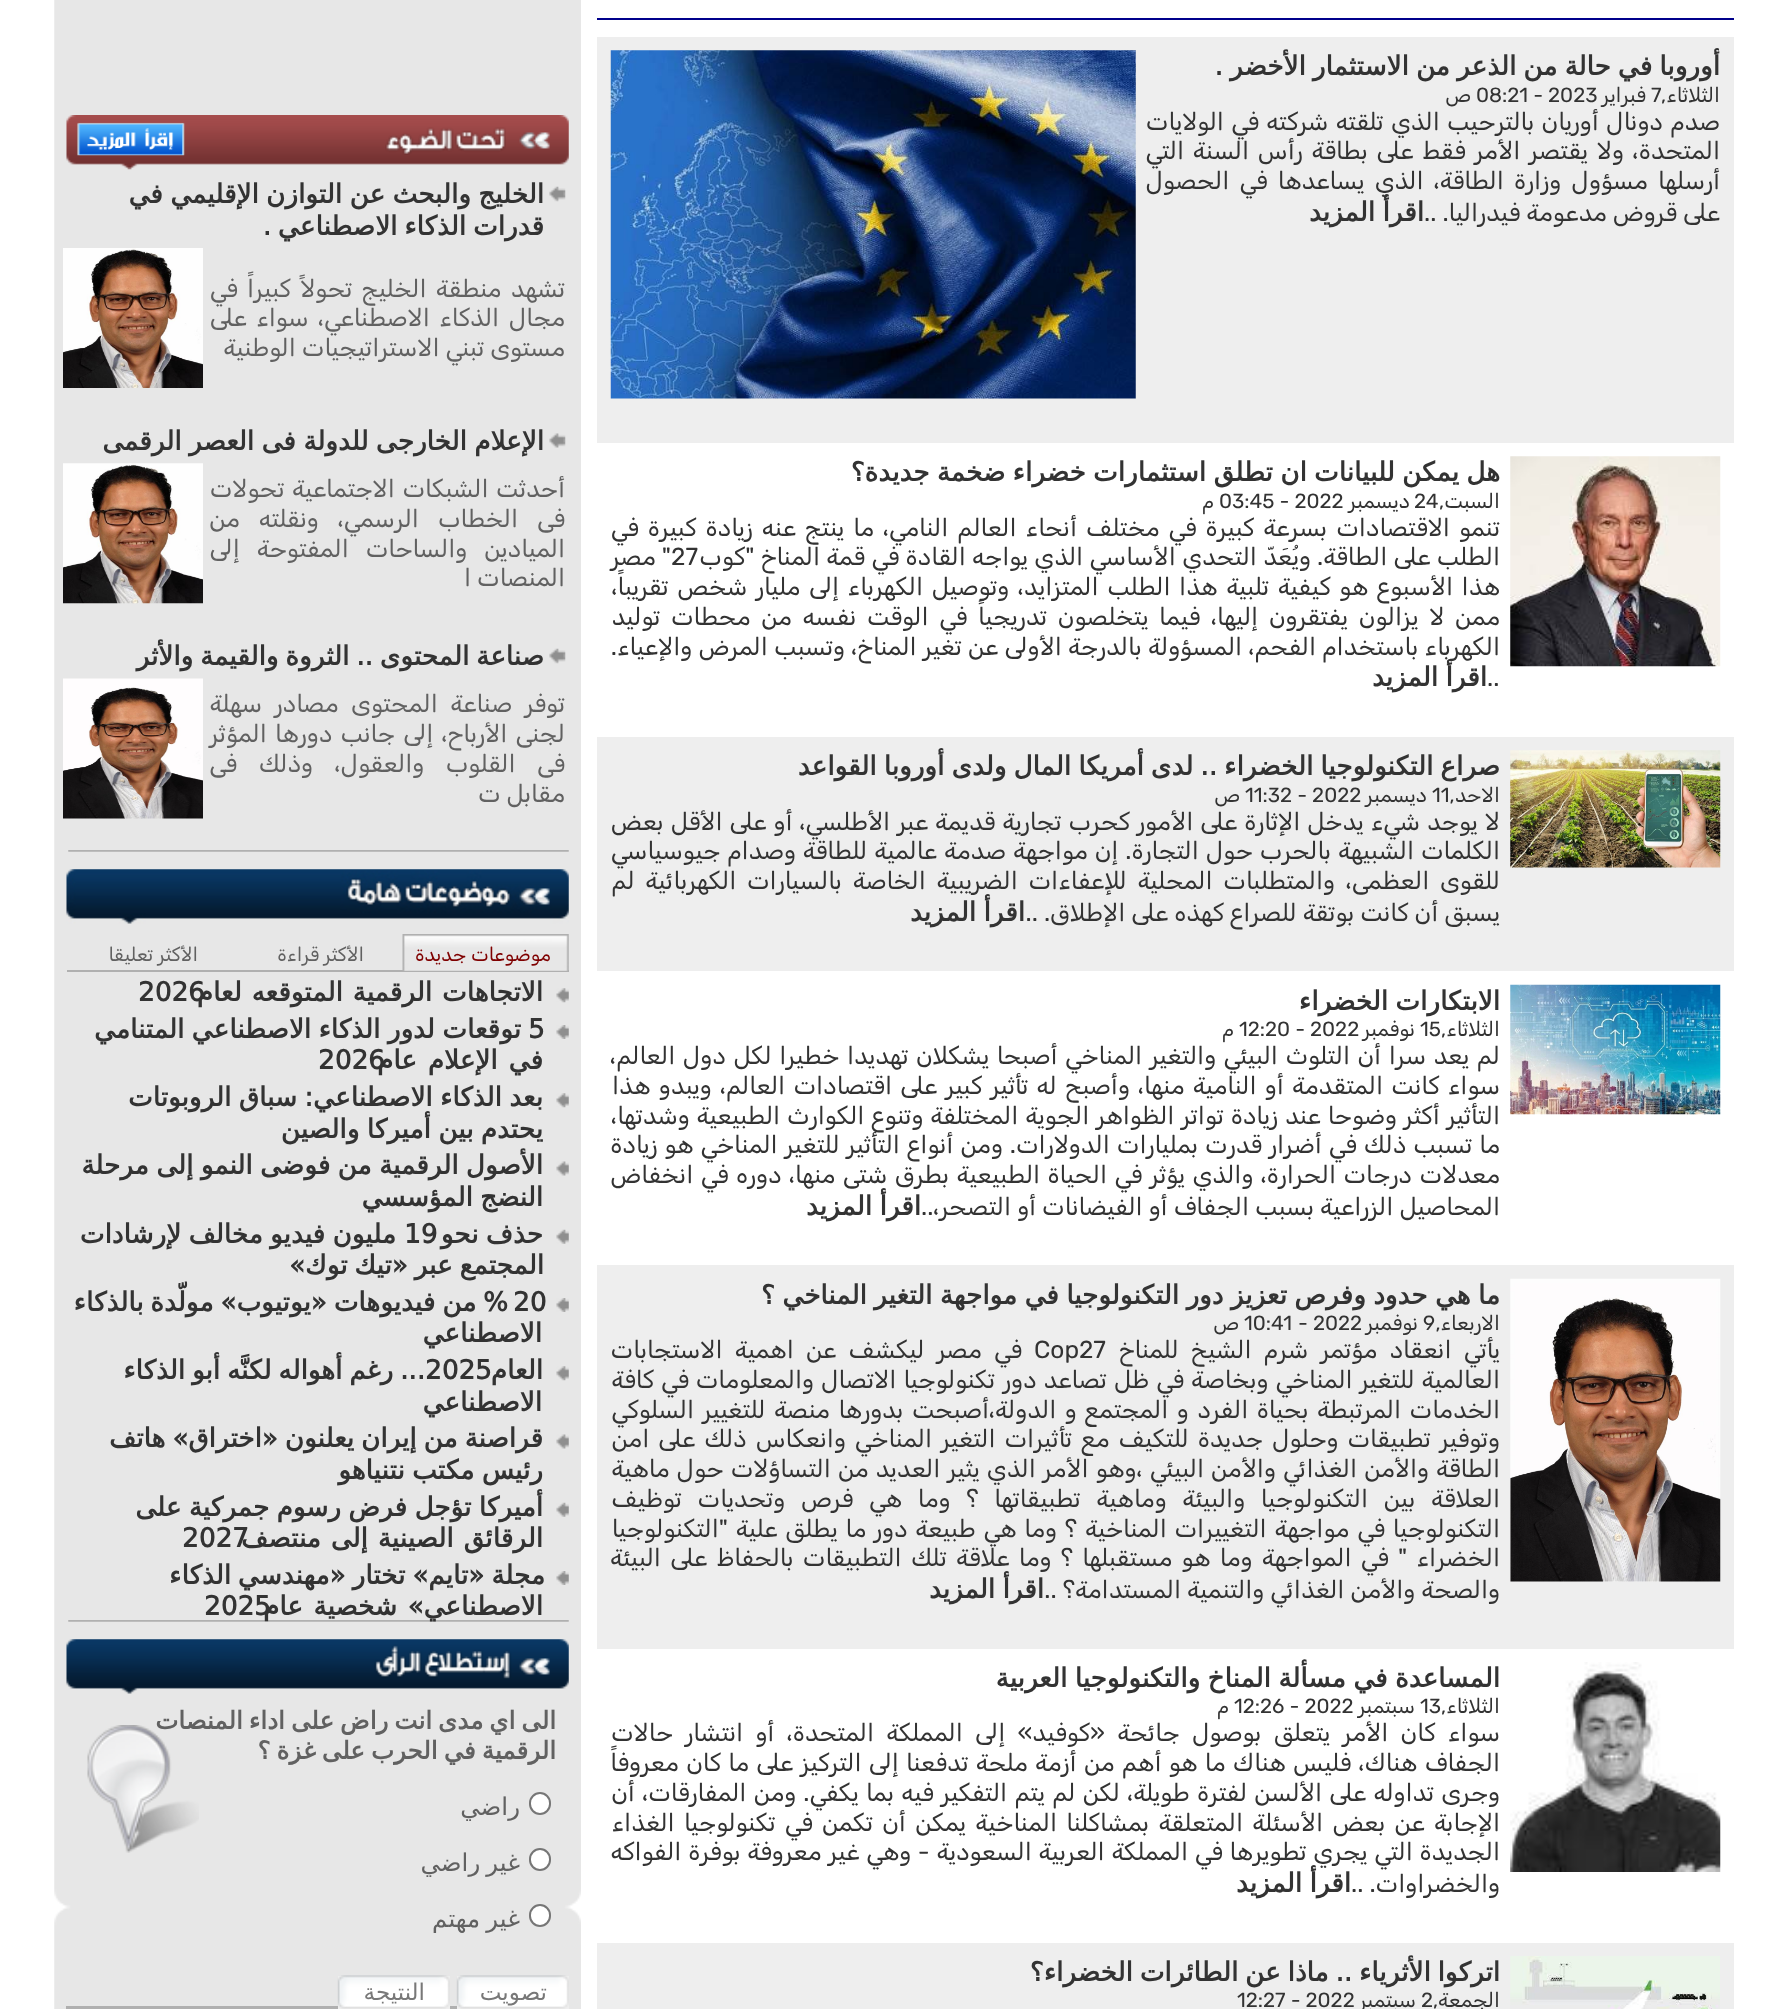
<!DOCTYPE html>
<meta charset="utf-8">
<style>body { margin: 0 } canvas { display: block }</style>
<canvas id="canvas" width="1788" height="2009"></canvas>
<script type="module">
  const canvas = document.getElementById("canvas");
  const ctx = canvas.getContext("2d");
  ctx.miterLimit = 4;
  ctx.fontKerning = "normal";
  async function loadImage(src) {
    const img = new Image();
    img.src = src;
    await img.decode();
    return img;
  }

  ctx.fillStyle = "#ffffff";
  ctx.fillRect(0, 0, 1788, 2009);
  ctx.fillStyle = "#00008b";
  ctx.fillRect(597, 18, 1137, 2);
  ctx.fillStyle = "#eeeeee";
  ctx.fillRect(597, 37, 1137, 406);
  ctx.wordSpacing = "-1.25px";
  ctx.direction = "rtl";
  ctx.font = "bold 26.25px DejaVu Sans";
  ctx.fillStyle = "#333333";
  ctx.fillText("أوروبا في حالة من الذعر من الاستثمار الأخضر .", 1720, 75);
  ctx.wordSpacing = "0px";
  ctx.font = "300 20.5px Rubik";
  ctx.fillText("الثلاثاء,", 1720, 102);
  ctx.direction = "ltr";
  ctx.fillText("7", 1651, 102);
  ctx.direction = "rtl";
  ctx.fillText("فبراير", 1646, 102);
  ctx.direction = "ltr";
  ctx.fillText("08:21 - 2023", 1476, 102);
  ctx.direction = "rtl";
  ctx.fillText("ص", 1471, 102);
  ctx.wordSpacing = "1.25px";
  ctx.font = "300 24.5px Rubik";
  ctx.fillText("صدم دونال أوريان بالترحيب الذي تلقته شركته في الولايات", 1720, 130);
  ctx.wordSpacing = "2.75px";
  ctx.fillText("المتحدة، ولا يقتصر الأمر فقط على بطاقة رأس السنة التي", 1720, 159);
  ctx.wordSpacing = "4.25px";
  ctx.fillText("أرسلها مسؤول وزارة الطاقة، الذي يساعدها في الحصول", 1720, 189);
  ctx.wordSpacing = "0px";
  ctx.fillText("على قروض مدعومة فيدراليا. ..", 1720, 221);
  ctx.wordSpacing = "-1px";
  ctx.font = "bold 26.25px DejaVu Sans";
  ctx.fillText("اقرأ المزيد", 1424, 221);
  ctx.drawImage(await loadImage("img1.png"), 610, 50, 526, 349);
  ctx.drawImage(await loadImage("img2.png"), 1510, 456, 211, 211);
  ctx.fillText("هل يمكن للبيانات ان تطلق استثمارات خضراء ضخمة جديدة؟", 1500, 481);
  ctx.wordSpacing = "0px";
  ctx.font = "300 20.5px Rubik";
  ctx.fillText("السبت,", 1500, 508);
  ctx.direction = "ltr";
  ctx.fillText("24", 1414, 508);
  ctx.direction = "rtl";
  ctx.fillText("ديسمبر", 1410, 508);
  ctx.direction = "ltr";
  ctx.fillText("03:45 - 2022", 1219, 508);
  ctx.direction = "rtl";
  ctx.fillText("م", 1214, 508);
  ctx.wordSpacing = "3px";
  ctx.font = "300 24.5px Rubik";
  ctx.fillText("تنمو الاقتصادات بسرعة كبيرة في مختلف أنحاء العالم النامي، ما ينتج عنه زيادة كبيرة في", 1500, 536);
  ctx.wordSpacing = "0.25px";
  ctx.fillText("الطلب على الطاقة. ويُعَدّ التحدي الأساسي الذي يواجه القادة في قمة المناخ \"كوب", 1500, 565);
  ctx.wordSpacing = "0px";
  ctx.direction = "ltr";
  ctx.fillText("27", 671, 565);
  ctx.direction = "rtl";
  ctx.fillText("\" مصر", 671, 565);
  ctx.wordSpacing = "2.6px";
  ctx.fillText("هذا الأسبوع هو كيفية تلبية هذا الطلب المتزايد، وتوصيل الكهرباء إلى مليار شخص تقريباً،", 1500, 595);
  ctx.wordSpacing = "4.75px";
  ctx.fillText("ممن لا يزالون يفتقرون إليها، فيما يتخلصون تدريجياً في الوقت نفسه من محطات توليد", 1500, 625);
  ctx.wordSpacing = "0.25px";
  ctx.fillText("الكهرباء باستخدام الفحم، المسؤولة بالدرجة الأولى عن تغير المناخ، وتسبب المرض والإعياء.", 1500, 655);
  ctx.wordSpacing = "0px";
  ctx.direction = "ltr";
  ctx.fillText("..", 1487, 686);
  ctx.wordSpacing = "-1px";
  ctx.direction = "rtl";
  ctx.font = "bold 26.25px DejaVu Sans";
  ctx.fillText("اقرأ المزيد", 1487, 686);
  ctx.fillStyle = "#eeeeee";
  ctx.fillRect(597, 737, 1137, 234);
  ctx.drawImage(await loadImage("img3.png"), 1510, 750, 211, 118);
  ctx.wordSpacing = "-1.25px";
  ctx.fillStyle = "#333333";
  ctx.fillText("صراع التكنولوجيا الخضراء .. لدى أمريكا المال ولدى أوروبا القواعد", 1500, 775);
  ctx.wordSpacing = "0px";
  ctx.font = "300 20.5px Rubik";
  ctx.fillText("الاحد,", 1500, 802);
  ctx.direction = "ltr";
  ctx.fillText("11", 1432, 802);
  ctx.direction = "rtl";
  ctx.fillText("ديسمبر", 1427, 802);
  ctx.direction = "ltr";
  ctx.fillText("11:32 - 2022", 1245, 802);
  ctx.direction = "rtl";
  ctx.fillText("ص", 1240, 802);
  ctx.wordSpacing = "1px";
  ctx.font = "300 24.5px Rubik";
  ctx.fillText("لا يوجد شيء يدخل الإثارة على الأمور كحرب تجارية قديمة عبر الأطلسي، أو على الأقل بعض", 1500, 830);
  ctx.wordSpacing = "0.9px";
  ctx.fillText("الكلمات الشبيهة بالحرب حول التجارة. إن مواجهة صدمة عالمية للطاقة وصدام جيوسياسي", 1500, 859);
  ctx.wordSpacing = "4.75px";
  ctx.fillText("للقوى العظمى، والمتطلبات المحلية للإعفاءات الضريبية الخاصة بالسيارات الكهربائية لم", 1500, 889);
  ctx.wordSpacing = "0px";
  ctx.fillText("يسبق أن كانت بوتقة للصراع كهذه على الإطلاق. ..", 1500, 921);
  ctx.wordSpacing = "-1px";
  ctx.font = "bold 26.25px DejaVu Sans";
  ctx.fillText("اقرأ المزيد", 1025, 921);
  ctx.drawImage(await loadImage("img4.png"), 1510, 984, 211, 131);
  ctx.fillText("الابتكارات الخضراء", 1500, 1010);
  ctx.wordSpacing = "0px";
  ctx.font = "300 20.5px Rubik";
  ctx.fillText("الثلاثاء,", 1500, 1036);
  ctx.direction = "ltr";
  ctx.fillText("15", 1420, 1036);
  ctx.direction = "rtl";
  ctx.fillText("نوفمبر", 1415, 1036);
  ctx.direction = "ltr";
  ctx.fillText("12:20 - 2022", 1239, 1036);
  ctx.direction = "rtl";
  ctx.fillText("م", 1234, 1036);
  ctx.wordSpacing = "1.5px";
  ctx.font = "300 24.5px Rubik";
  ctx.fillText("لم يعد سرا أن التلوث البيئي والتغير المناخي أصبحا يشكلان تهديدا خطيرا لكل دول العالم،", 1500, 1064);
  ctx.wordSpacing = "2.25px";
  ctx.fillText("سواء كانت المتقدمة أو النامية منها، وأصبح له تأثير كبير على اقتصادات العالم، ويبدو هذا", 1500, 1094);
  ctx.wordSpacing = "0.9px";
  ctx.fillText("التأثير أكثر وضوحا عند زيادة تواتر الظواهر الجوية المختلفة وتنوع الكوارث الطبيعية وشدتها،", 1500, 1124);
  ctx.wordSpacing = "1px";
  ctx.fillText("ما تسبب ذلك في أضرار قدرت بمليارات الدولارات. ومن أنواع التأثير للتغير المناخي هو زيادة", 1500, 1153);
  ctx.wordSpacing = "1.4px";
  ctx.fillText("معدلات درجات الحرارة، والذي يؤثر في الحياة الطبيعية بطرق شتى منها، دوره في انخفاض", 1500, 1183);
  ctx.wordSpacing = "0px";
  ctx.fillText("المحاصيل الزراعية بسبب الجفاف أو الفيضانات أو التصحر،..", 1500, 1215);
  ctx.wordSpacing = "-1px";
  ctx.font = "bold 26.25px DejaVu Sans";
  ctx.fillText("اقرأ المزيد", 921, 1215);
  ctx.fillStyle = "#eeeeee";
  ctx.fillRect(597, 1265, 1137, 384);
  ctx.drawImage(await loadImage("img5.png"), 1510, 1278, 211, 304);
  ctx.fillStyle = "#333333";
  ctx.fillText("ما هي حدود وفرص تعزيز دور التكنولوجيا في مواجهة التغير المناخي ؟", 1500, 1304);
  ctx.wordSpacing = "0px";
  ctx.font = "300 20.5px Rubik";
  ctx.fillText("الاربعاء,", 1500, 1330);
  ctx.direction = "ltr";
  ctx.fillText("9", 1423, 1330);
  ctx.direction = "rtl";
  ctx.fillText("نوفمبر", 1418, 1330);
  ctx.direction = "ltr";
  ctx.fillText("- 2022", 1298, 1330);
  ctx.fillText("10:41", 1244, 1330);
  ctx.direction = "rtl";
  ctx.fillText("ص", 1239, 1330);
  ctx.wordSpacing = "6.25px";
  ctx.font = "300 24.5px Rubik";
  ctx.fillText("يأتي انعقاد مؤتمر شرم الشيخ للمناخ", 1500, 1358);
  ctx.wordSpacing = "0px";
  ctx.direction = "ltr";
  ctx.fillText("Cop27", 1034, 1358);
  ctx.wordSpacing = "6.25px";
  ctx.direction = "rtl";
  ctx.fillText("في مصر ليكشف عن اهمية الاستجابات", 1022, 1358);
  ctx.wordSpacing = "1px";
  ctx.fillText("العالمية للتغير المناخي وبخاصة في ظل تصاعد دور", 1500, 1388);
  ctx.wordSpacing = "1.1px";
  ctx.fillText("تكنولوجيا الاتصال والمعلومات", 995, 1388);
  ctx.wordSpacing = "1px";
  ctx.fillText("في كافة", 689, 1388);
  ctx.wordSpacing = "0px";
  ctx.fillText("الخدمات", 1500, 1418);
  ctx.wordSpacing = "2.5px";
  ctx.fillText("المرتبطة بحياة الفرد و المجتمع و الدولة،أصبحت بدورها منصة للتغيير السلوكي", 1401, 1418);
  ctx.wordSpacing = "3px";
  ctx.fillText("وتوفير تطبيقات وحلول جديدة للتكيف مع", 1500, 1447);
  ctx.fillText("تأثيرات التغير المناخي وانعكاس ذلك على امن", 1072, 1447);
  ctx.wordSpacing = "1.1px";
  ctx.fillText("الطاقة والأمن الغذائي والأمن البيئي ،وهو الأمر الذي يثير العديد من التساؤلات حول ماهية", 1500, 1477);
  ctx.wordSpacing = "9.75px";
  ctx.fillText("العلاقة بين التكنولوجيا والبيئة وماهية تطبيقاتها ؟ وما هي فرص وتحديات توظيف", 1500, 1507);
  ctx.wordSpacing = "1.8px";
  ctx.fillText("التكنولوجيا في مواجهة التغييرات المناخية ؟ وما هي طبيعة دور ما يطلق علية \"التكنولوجيا", 1500, 1537);
  ctx.wordSpacing = "3.25px";
  ctx.fillText("الخضراء \" في المواجهة وما هو مستقبلها ؟ وما علاقة تلك التطبيقات بالحفاظ على البيئة", 1500, 1566);
  ctx.wordSpacing = "0px";
  ctx.fillText("والصحة والأمن الغذائي والتنمية المستدامة؟ ..", 1500, 1598);
  ctx.wordSpacing = "-1px";
  ctx.font = "bold 26.25px DejaVu Sans";
  ctx.fillText("اقرأ المزيد", 1044, 1598);
  ctx.drawImage(await loadImage("img6.png"), 1510, 1662, 211, 210);
  ctx.fillText("المساعدة في مسألة المناخ والتكنولوجيا العربية", 1500, 1687);
  ctx.wordSpacing = "0px";
  ctx.font = "300 20.5px Rubik";
  ctx.fillText("الثلاثاء,", 1500, 1713);
  ctx.direction = "ltr";
  ctx.fillText("13", 1420, 1713);
  ctx.direction = "rtl";
  ctx.fillText("سبتمبر", 1415, 1713);
  ctx.direction = "ltr";
  ctx.fillText("12:26 - 2022", 1234, 1713);
  ctx.direction = "rtl";
  ctx.fillText("م", 1229, 1713);
  ctx.wordSpacing = "6.25px";
  ctx.font = "300 24.5px Rubik";
  ctx.fillText("سواء كان الأمر يتعلق بوصول جائحة «كوفيد» إلى المملكة المتحدة، أو انتشار حالات", 1500, 1741);
  ctx.wordSpacing = "1.25px";
  ctx.fillText("الجفاف هناك، فليس هناك ما هو أهم من أزمة ملحة تدفعنا إلى التركيز على ما كان معروفاً", 1500, 1771);
  ctx.fillText("وجرى تداوله على الألسن لفترة طويلة، لكن لم يتم التفكير فيه بما يكفي. ومن المفارقات، أن", 1500, 1801);
  ctx.wordSpacing = "3.25px";
  ctx.fillText("الإجابة عن بعض الأسئلة المتعلقة بمشاكلنا المناخية يمكن أن تكمن في تكنولوجيا الغذاء", 1500, 1831);
  ctx.wordSpacing = "0.75px";
  ctx.fillText("الجديدة التي يجري تطويرها في المملكة العربية السعودية - وهي غير معروفة بوفرة الفواكه", 1500, 1860);
  ctx.wordSpacing = "0px";
  ctx.fillText("والخضراوات. ..", 1500, 1892);
  ctx.wordSpacing = "-1px";
  ctx.font = "bold 26.25px DejaVu Sans";
  ctx.fillText("اقرأ المزيد", 1351, 1892);
  ctx.fillStyle = "#eeeeee";
  ctx.fillRect(597, 1943, 1137, 66);
  ctx.drawImage(await loadImage("img7.png"), 1510, 1956, 210, 53);
  ctx.wordSpacing = "-1.5px";
  ctx.fillStyle = "#333333";
  ctx.fillText("اتركوا الأثرياء .. ماذا عن الطائرات الخضراء؟", 1500, 1981);
  ctx.wordSpacing = "0px";
  ctx.font = "300 20.5px Rubik";
  ctx.fillText("الجمعة,", 1500, 2007);
  ctx.direction = "ltr";
  ctx.fillText("2", 1421, 2007);
  ctx.direction = "rtl";
  ctx.fillText("سبتمبر", 1416, 2007);
  ctx.direction = "ltr";
  ctx.fillText("12:27 - 2022", 1237, 2007);
  ctx.drawImage(await loadImage("img8.png"), 54, 0, 527, 2009);
  ctx.drawImage(await loadImage("img9.png"), 68, 850, 501, 2);
  ctx.drawImage(await loadImage("img10.png"), 66, 115, 503, 55);
  ctx.drawImage(await loadImage("img11.png"), 385, 127, 121, 28);
  ctx.drawImage(await loadImage("img12.png"), 77, 122, 108, 34);
  ctx.drawImage(await loadImage("img13.png"), 549, 186, 17, 16);
  ctx.direction = "rtl";
  ctx.font = "bold 26.25px DejaVu Sans";
  ctx.fillText("الخليج", 544, 203);
  ctx.wordSpacing = "-1px";
  ctx.fillText("والبحث عن التوازن الإقليمي في", 471, 203);
  ctx.wordSpacing = "-1.5px";
  ctx.fillText("قدرات الذكاء الاصطناعي .", 544, 235);
  ctx.wordSpacing = "3.25px";
  ctx.font = "300 24.5px Rubik";
  ctx.fillStyle = "#616161";
  ctx.fillText("تشهد منطقة الخليج تحولاً كبيراً في", 565, 297);
  ctx.wordSpacing = "3.5px";
  ctx.fillText("مجال الذكاء الاصطناعي، سواء على", 565, 326);
  ctx.wordSpacing = "0px";
  ctx.fillText("مستوى تبني الاستراتيجيات الوطنية", 565, 356);
  ctx.drawImage(await loadImage("img14.png"), 63, 248, 140, 140);
  ctx.drawImage(await loadImage("img15.png"), 549, 433, 17, 15);
  ctx.wordSpacing = "-1px";
  ctx.font = "bold 26.25px DejaVu Sans";
  ctx.fillStyle = "#333333";
  ctx.fillText("الإعلام الخارجى للدولة فى العصر الرقمى", 544, 450);
  ctx.wordSpacing = "1.5px";
  ctx.font = "300 24.5px Rubik";
  ctx.fillStyle = "#616161";
  ctx.fillText("أحدثت الشبكات الاجتماعية تحولات", 565, 497);
  ctx.wordSpacing = "13px";
  ctx.fillText("فى الخطاب الرسمي، ونقلته من", 565, 527);
  ctx.wordSpacing = "11px";
  ctx.fillText("الميادين والساحات المفتوحة إلى", 565, 557);
  ctx.wordSpacing = "0px";
  ctx.fillText("المنصات ا", 565, 586);
  ctx.drawImage(await loadImage("img16.png"), 63, 463, 140, 141);
  ctx.drawImage(await loadImage("img13.png"), 549, 648, 17, 16);
  ctx.wordSpacing = "-1.5px";
  ctx.font = "bold 26.25px DejaVu Sans";
  ctx.fillStyle = "#333333";
  ctx.fillText("صناعة المحتوى .. الثروة والقيمة والأثر", 544, 665);
  ctx.wordSpacing = "6.5px";
  ctx.font = "300 24.5px Rubik";
  ctx.fillStyle = "#616161";
  ctx.fillText("توفر صناعة المحتوى مصادر سهلة", 565, 712);
  ctx.wordSpacing = "2.25px";
  ctx.fillText("لجنى الأرباح، إلى جانب دورها المؤثر", 565, 742);
  ctx.wordSpacing = "15.5px";
  ctx.fillText("فى القلوب والعقول، وذلك فى", 565, 772);
  ctx.wordSpacing = "0px";
  ctx.fillText("مقابل ت", 565, 802);
  ctx.drawImage(await loadImage("img17.png"), 63, 678, 140, 141);
  ctx.drawImage(await loadImage("img9.png"), 68, 1620, 501, 2);
  ctx.drawImage(await loadImage("img18.png"), 66, 869, 503, 55);
  ctx.fillStyle = "#b0b0b0";
  ctx.fillRect(67, 970, 502, 2);
  ctx.drawImage(await loadImage("img19.png"), 402, 934, 167, 37);
  ctx.font = "300 19.25px Rubik";
  ctx.fillStyle = "#7f0000";
  ctx.fillText("موضوعات جديدة", 551, 961);
  ctx.fillStyle = "#616161";
  ctx.fillText("الأكثر قراءة", 364, 961);
  ctx.fillText("الأكثر تعليقا", 198, 961);
  ctx.drawImage(await loadImage("img20.png"), 556, 988, 13, 15);
  ctx.direction = "ltr";
  ctx.font = "bold 26.25px DejaVu Sans";
  ctx.fillStyle = "#333333";
  ctx.fillText("2026", 138, 1001);
  ctx.wordSpacing = "1.5px";
  ctx.direction = "rtl";
  ctx.fillText("الاتجاهات الرقمية المتوقعه لعام", 543, 1001);
  ctx.drawImage(await loadImage("img21.png"), 556, 1025, 13, 14);
  ctx.wordSpacing = "0px";
  ctx.direction = "ltr";
  ctx.fillText("5", 528, 1038);
  ctx.wordSpacing = "-1px";
  ctx.direction = "rtl";
  ctx.fillText("توقعات لدور الذكاء الاصطناعي المتنامي", 521, 1038);
  ctx.wordSpacing = "0px";
  ctx.direction = "ltr";
  ctx.fillText("2026", 318, 1069);
  ctx.wordSpacing = "2.6px";
  ctx.direction = "rtl";
  ctx.fillText("في الإعلام عام", 543, 1069);
  ctx.drawImage(await loadImage("img20.png"), 556, 1093, 13, 15);
  ctx.wordSpacing = "-1px";
  ctx.fillText("بعد الذكاء الاصطناعي: سباق الروبوتات", 543, 1106);
  ctx.fillText("يحتدم بين أميركا والصين", 543, 1138);
  ctx.drawImage(await loadImage("img22.png"), 556, 1161, 13, 15);
  ctx.fillText("الأصول الرقمية من فوضى النمو إلى مرحلة", 543, 1174);
  ctx.fillText("النضج المؤسسي", 543, 1206);
  ctx.drawImage(await loadImage("img23.png"), 556, 1229, 13, 15);
  ctx.fillText("حذف نحو", 543, 1243);
  ctx.wordSpacing = "0px";
  ctx.direction = "ltr";
  ctx.fillText("19", 404, 1243);
  ctx.wordSpacing = "-1px";
  ctx.direction = "rtl";
  ctx.fillText("مليون فيديو مخالف لإرشادات", 396, 1243);
  ctx.wordSpacing = "-1.5px";
  ctx.fillText("المجتمع عبر «تيك توك»", 544, 1274);
  ctx.drawImage(await loadImage("img21.png"), 556, 1298, 13, 14);
  ctx.wordSpacing = "0px";
  ctx.direction = "ltr";
  ctx.fillText("20", 513, 1311);
  ctx.wordSpacing = "-1.5px";
  ctx.direction = "rtl";
  ctx.fillText("% من فيديوهات «يوتيوب» مولّدة بالذكاء", 508, 1311);
  ctx.wordSpacing = "0px";
  ctx.fillText("الاصطناعي", 542, 1342);
  ctx.drawImage(await loadImage("img20.png"), 556, 1366, 13, 15);
  ctx.fillText("العام", 543, 1379);
  ctx.direction = "ltr";
  ctx.fillText("2025", 425, 1379);
  ctx.wordSpacing = "-1.5px";
  ctx.direction = "rtl";
  ctx.fillText("... رغم أهواله لكنَّه أبو الذكاء", 425, 1379);
  ctx.wordSpacing = "0px";
  ctx.fillText("الاصطناعي", 542, 1411);
  ctx.drawImage(await loadImage("img24.png"), 556, 1434, 13, 15);
  ctx.wordSpacing = "-1.5px";
  ctx.fillText("قراصنة من إيران يعلنون «اختراق» هاتف", 543, 1447);
  ctx.wordSpacing = "-1px";
  ctx.fillText("رئيس مكتب نتنياهو", 543, 1479);
  ctx.drawImage(await loadImage("img23.png"), 556, 1502, 13, 15);
  ctx.fillText("أميركا تؤجل فرض رسوم جمركية على", 543, 1516);
  ctx.wordSpacing = "0px";
  ctx.direction = "ltr";
  ctx.fillText("2027", 182, 1547);
  ctx.wordSpacing = "1.5px";
  ctx.direction = "rtl";
  ctx.fillText("الرقائق الصينية إلى منتصف", 543, 1547);
  ctx.drawImage(await loadImage("img21.png"), 556, 1571, 13, 14);
  ctx.wordSpacing = "-1.5px";
  ctx.fillText("مجلة «تايم» تختار «مهندسي الذكاء", 545, 1584);
  ctx.wordSpacing = "0px";
  ctx.direction = "ltr";
  ctx.fillText("2025", 204, 1615);
  ctx.wordSpacing = "2px";
  ctx.direction = "rtl";
  ctx.fillText("الاصطناعي» شخصية عام", 543, 1615);
  ctx.fillStyle = "#b0b0b0";
  ctx.fillRect(66, 2006, 391, 3);
  ctx.drawImage(await loadImage("img25.png"), 66, 1639, 503, 55);
  ctx.drawImage(await loadImage("img26.png"), 87, 1725, 112, 128);
  ctx.wordSpacing = "-1.75px";
  ctx.font = "bold 24.5px DejaVu Sans";
  ctx.fillStyle = "#616161";
  ctx.fillText("الى اي مدى انت راض على اداء المنصات", 556, 1729);
  ctx.fillText("الرقمية في الحرب على غزة ؟", 556, 1759);
  ctx.fillStyle = "#ffffff";
  ctx.beginPath();
  ctx.roundRect(530, 1793, 20, 21, 10);
  ctx.fill();
  ctx.strokeStyle = "#767676";
  ctx.lineWidth = 2;
  ctx.stroke();
  ctx.wordSpacing = "0px";
  ctx.font = "24.5px DejaVu Sans";
  ctx.fillStyle = "#616161";
  ctx.fillText("راضي", 520, 1815);
  ctx.fillStyle = "#ffffff";
  ctx.beginPath();
  ctx.roundRect(530, 1849, 20, 21, 10);
  ctx.fill();
  ctx.stroke();
  ctx.wordSpacing = "-1.75px";
  ctx.fillStyle = "#616161";
  ctx.fillText("غير راضي", 520, 1871);
  ctx.fillStyle = "#ffffff";
  ctx.beginPath();
  ctx.roundRect(530, 1905, 20, 21, 10);
  ctx.fill();
  ctx.stroke();
  ctx.fillStyle = "#616161";
  ctx.fillText("غير مهتم", 520, 1927);
  ctx.fillStyle = "#efefef";
  ctx.fillRect(457, 1976, 112, 33);
  ctx.drawImage(await loadImage("img27.png"), 456, 1975, 113, 34);
  ctx.wordSpacing = "0px";
  ctx.font = "23px DejaVu Sans";
  ctx.fillStyle = "#787878";
  ctx.fillText("تصويت", 547, 2000);
  ctx.fillStyle = "#efefef";
  ctx.fillRect(338, 1976, 112, 33);
  ctx.drawImage(await loadImage("img27.png"), 337, 1975, 113, 34);
  ctx.fillStyle = "#787878";
  ctx.fillText("النتيجة", 425, 2000);
</script>
